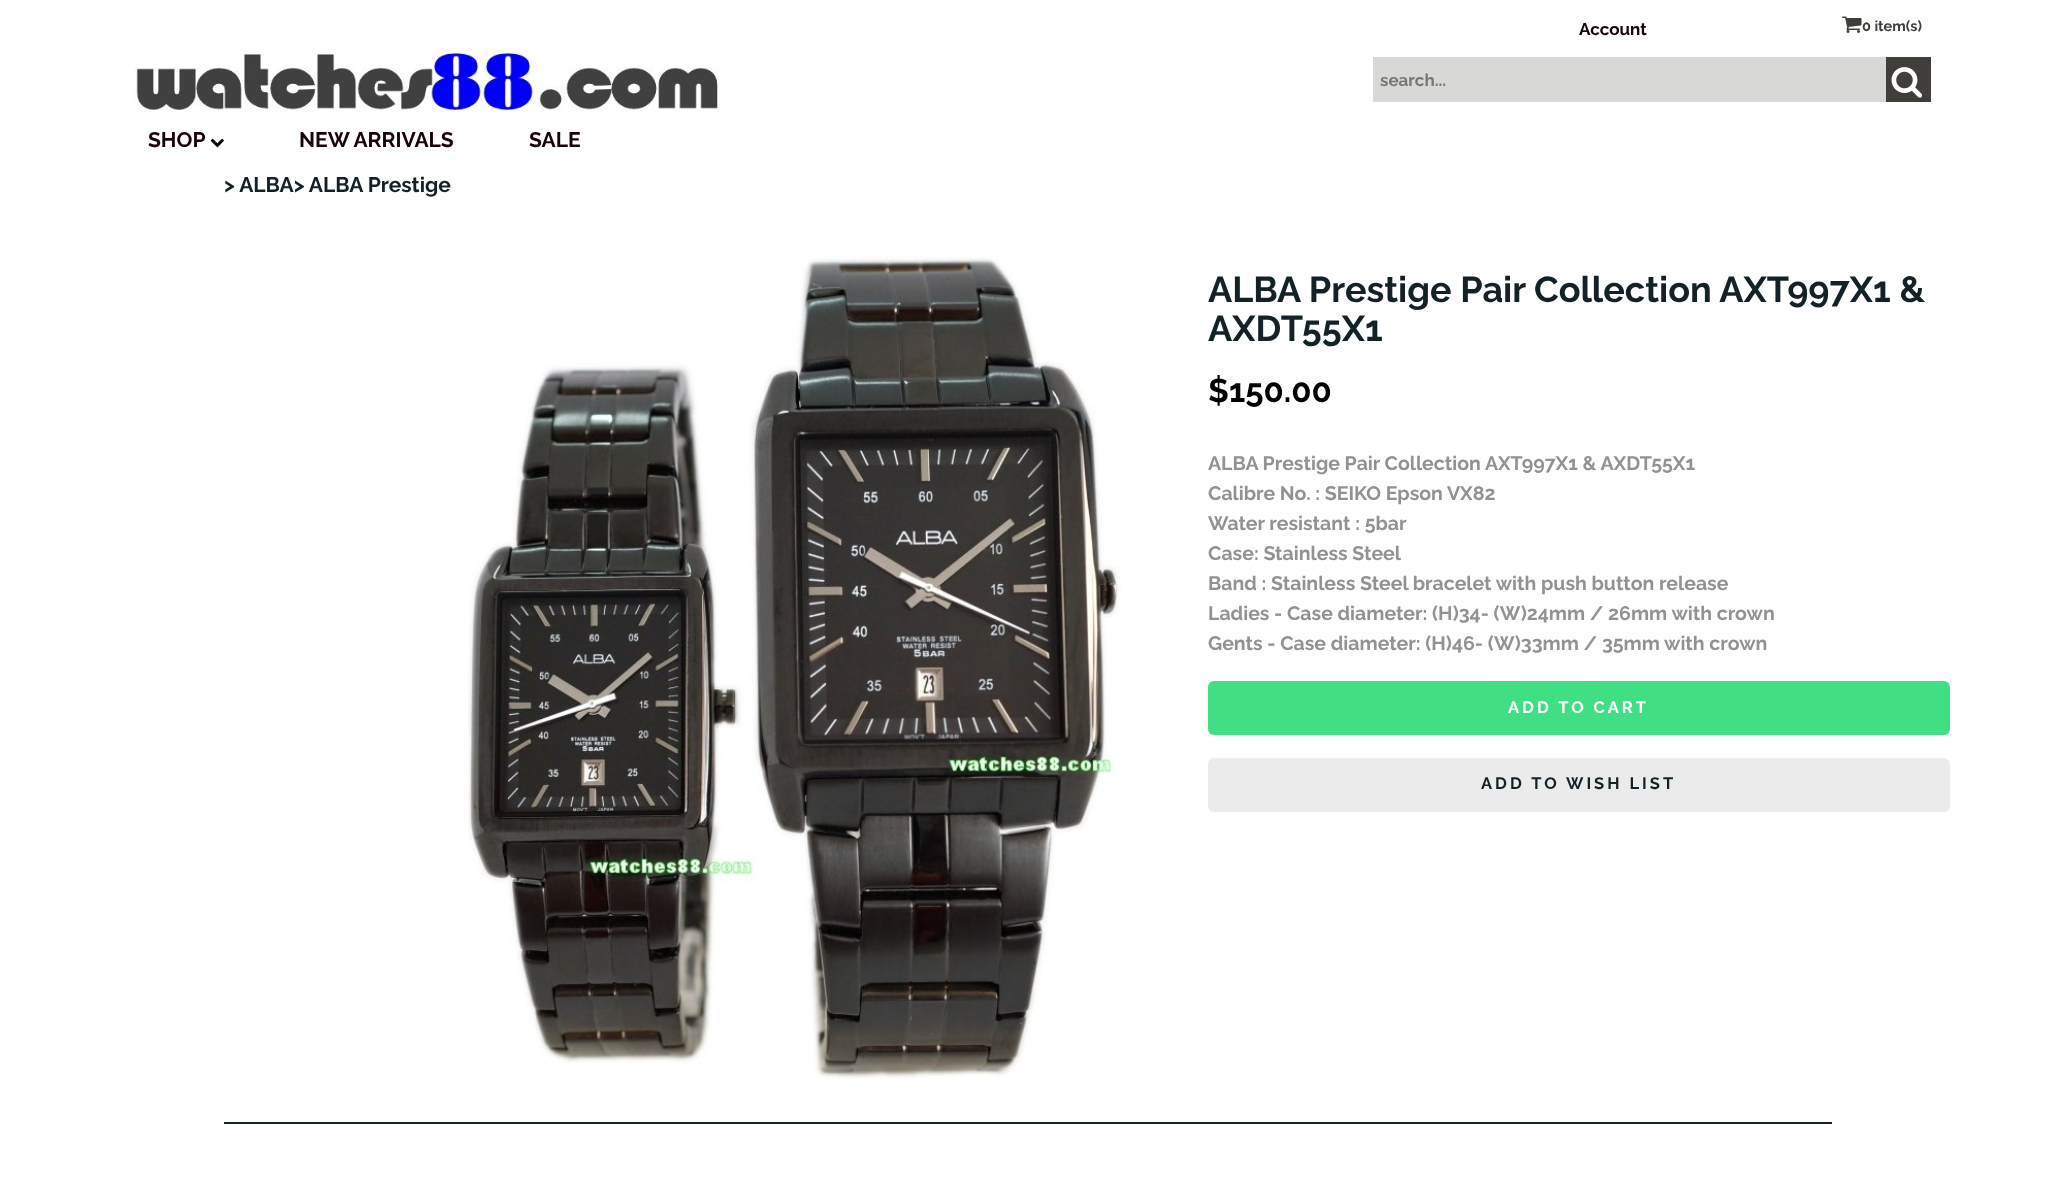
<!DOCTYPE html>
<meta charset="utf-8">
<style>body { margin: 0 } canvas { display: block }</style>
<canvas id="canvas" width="2054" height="1189"></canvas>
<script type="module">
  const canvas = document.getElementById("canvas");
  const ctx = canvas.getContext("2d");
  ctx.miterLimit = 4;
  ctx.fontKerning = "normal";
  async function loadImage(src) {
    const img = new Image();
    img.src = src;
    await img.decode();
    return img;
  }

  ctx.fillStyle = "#ffffff";
  ctx.fillRect(0, 0, 2054, 1189);
  ctx.font = "bold 17px Raleway";
  ctx.fillStyle = "#180309";
  ctx.fillText("Account", 1579, 35);
  ctx.drawImage(await loadImage("img1.png"), 1842, 16, 20, 17);
  ctx.font = "bold 14.5px Raleway";
  ctx.fillStyle = "#403e3b";
  ctx.fillText("0 item(s)", 1862, 31);
  ctx.drawImage(await loadImage("img2.png"), 134, 47, 585, 66);
  ctx.fillStyle = "#d8d8d7";
  ctx.fillRect(1373, 57, 513, 45);
  ctx.font = "bold 17px Raleway";
  ctx.fillStyle = "#777777";
  ctx.fillText("search...", 1380, 86);
  ctx.fillStyle = "#403e3b";
  ctx.fillRect(1886, 57, 45, 45);
  ctx.drawImage(await loadImage("img3.png"), 1891, 67, 32, 31);
  ctx.font = "bold 21px Raleway";
  ctx.fillStyle = "#180309";
  ctx.fillText("SHOP", 148, 147);
  ctx.drawImage(await loadImage("img4.png"), 210, 138, 14, 10);
  ctx.fillStyle = "rgba(255, 255, 255, 0.6)";
  ctx.fillRect(278, 110, 196, 3);
  ctx.fillStyle = "#180309";
  ctx.fillText("NEW ARRIVALS", 299, 147);
  ctx.fillStyle = "rgba(255, 255, 255, 0.6)";
  ctx.fillRect(507, 110, 74, 3);
  ctx.fillStyle = "#180309";
  ctx.fillText("SALE", 529, 147);
  ctx.fillStyle = "#142126";
  ctx.fillText("> ALBA> ALBA Prestige", 224, 192);
  ctx.drawImage(await loadImage("img5.png"), 468, 255, 653, 825);
  ctx.font = "bold 36px Raleway";
  ctx.fillText("ALBA Prestige Pair Collection AXT997X1 &", 1208, 302);
  ctx.fillText("AXDT55X1", 1208, 341);
  ctx.font = "bold 33px Raleway";
  ctx.fillStyle = "#000000";
  ctx.fillText("$150.00", 1208, 402);
  ctx.font = "bold 19.5px Raleway";
  ctx.fillStyle = "#929292";
  ctx.fillText("ALBA Prestige Pair Collection AXT997X1 & AXDT55X1", 1208, 470);
  ctx.fillText("Calibre No. : SEIKO Epson VX82", 1208, 500);
  ctx.fillText("Water resistant : 5bar", 1208, 530);
  ctx.fillText("Case: Stainless Steel", 1208, 560);
  ctx.fillText("Band : Stainless Steel bracelet with push button release", 1208, 590);
  ctx.fillText("Ladies - Case diameter: (H)34- (W)24mm / 26mm with crown", 1208, 620);
  ctx.fillText("Gents - Case diameter: (H)46- (W)33mm / 35mm with crown", 1208, 650);
  ctx.fillStyle = "#40df84";
  ctx.beginPath();
  ctx.roundRect(1208, 681, 742, 54, 6);
  ctx.fill();
  ctx.letterSpacing = "3px";
  ctx.font = "bold 16.5px Raleway";
  ctx.fillStyle = "#ffffff";
  ctx.fillText("ADD TO CART", 1508, 713);
  ctx.fillStyle = "#ebebeb";
  ctx.beginPath();
  ctx.roundRect(1208, 758, 742, 54, 6);
  ctx.fill();
  ctx.fillStyle = "#142126";
  ctx.fillText("ADD TO WISH LIST", 1481, 789);
  ctx.fillRect(224, 1122, 1608, 2);
</script>
